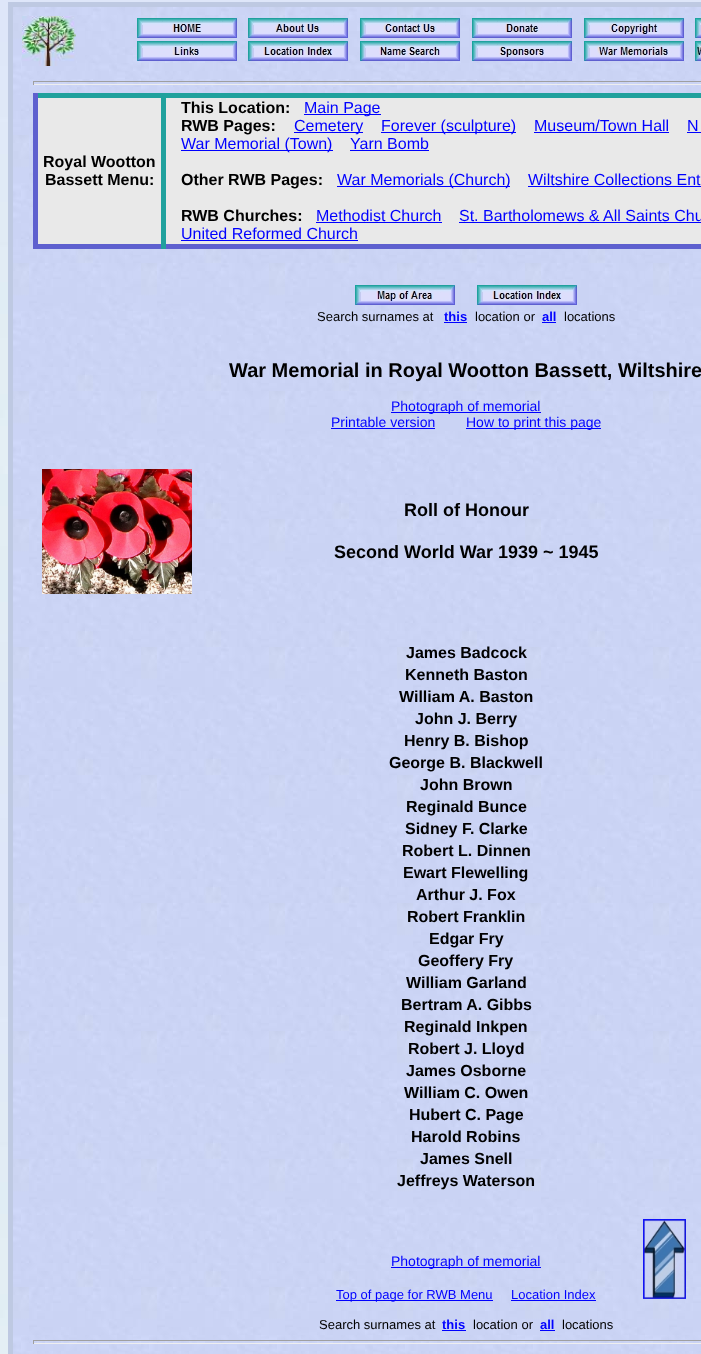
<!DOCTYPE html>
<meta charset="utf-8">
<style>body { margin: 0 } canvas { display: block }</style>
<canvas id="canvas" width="701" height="1354"></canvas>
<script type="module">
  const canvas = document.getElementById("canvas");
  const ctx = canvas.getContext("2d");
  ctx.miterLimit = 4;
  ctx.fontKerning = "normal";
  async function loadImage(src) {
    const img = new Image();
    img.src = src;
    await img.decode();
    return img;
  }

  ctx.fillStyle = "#ffffff";
  ctx.fillRect(0, 0, 701, 1354);
  ctx.drawImage(await loadImage("img1.png"), 0, 0, 701, 1354);
  ctx.drawImage(await loadImage("img2.png"), 13, 7, 688, 1347);
  ctx.strokeStyle = "#bec9e2";
  ctx.lineWidth = 5;
  ctx.strokeRect(10.5, 4.5, 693, 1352);
  ctx.drawImage(await loadImage("img3.png"), 22, 16, 54, 50);
  ctx.drawImage(await loadImage("img4.png"), 137, 18, 100, 20);
  ctx.drawImage(await loadImage("img5.png"), 248, 18, 100, 20);
  ctx.drawImage(await loadImage("img6.png"), 360, 18, 100, 20);
  ctx.drawImage(await loadImage("img7.png"), 472, 18, 100, 20);
  ctx.drawImage(await loadImage("img8.png"), 584, 18, 100, 20);
  ctx.drawImage(await loadImage("img9.png"), 695, 18, 6, 20);
  ctx.drawImage(await loadImage("img10.png"), 137, 41, 100, 20);
  ctx.drawImage(await loadImage("img11.png"), 248, 41, 100, 20);
  ctx.drawImage(await loadImage("img12.png"), 360, 41, 100, 20);
  ctx.drawImage(await loadImage("img13.png"), 472, 41, 100, 20);
  ctx.drawImage(await loadImage("img14.png"), 584, 41, 100, 20);
  ctx.drawImage(await loadImage("img15.png"), 695, 41, 6, 20);
  ctx.fillStyle = "#9f9f9f";
  ctx.fillRect(33, 81, 668, 1);
  ctx.fillStyle = "#eeeeee";
  ctx.fillRect(33, 84, 668, 1);
  ctx.fillStyle = "#9f9f9f";
  ctx.fillRect(33, 81, 1, 4);
  ctx.fillStyle = "#e9e9e9";
  ctx.fillRect(38, 98, 663, 146);
  ctx.fillStyle = "#20a19d";
  ctx.fillRect(33, 93, 668, 5);
  ctx.fillStyle = "#5e60cf";
  ctx.fillRect(33, 244, 668, 5);
  ctx.fillRect(33, 93, 5, 156);
  ctx.fillStyle = "#20a19d";
  ctx.fillRect(161, 93, 5, 156);
  ctx.font = "bold 16px Liberation Sans";
  ctx.fillStyle = "#000000";
  ctx.fillText("Royal Wootton", 43, 167);
  ctx.fillText("Bassett Menu:", 45, 185);
  ctx.fillText("This Location:", 181, 113);
  ctx.fillStyle = "#0000ff";
  ctx.fillRect(304, 114, 77, 1);
  ctx.font = "16px Liberation Sans";
  ctx.fillText("Main Page", 304, 113);
  ctx.font = "bold 16px Liberation Sans";
  ctx.fillStyle = "#000000";
  ctx.fillText("RWB Pages:", 181, 131);
  ctx.fillStyle = "#0000ff";
  ctx.fillRect(294, 132, 69, 1);
  ctx.font = "16px Liberation Sans";
  ctx.fillText("Cemetery", 294, 131);
  ctx.fillRect(381, 132, 135, 1);
  ctx.fillText("Forever (sculpture)", 381, 131);
  ctx.fillText("Museum/Town Hall", 534, 131);
  ctx.fillRect(534, 132, 135, 1);
  ctx.fillText("N", 687, 131);
  ctx.fillRect(687, 132, 14, 1);
  ctx.fillRect(181, 150, 152, 1);
  ctx.fillText("War Memorial (Town)", 181, 149);
  ctx.fillText("Yarn Bomb", 350, 149);
  ctx.fillRect(350, 150, 79, 1);
  ctx.font = "bold 16px Liberation Sans";
  ctx.fillStyle = "#000000";
  ctx.fillText("Other RWB Pages:", 181, 185);
  ctx.fillStyle = "#0000ff";
  ctx.fillRect(337, 186, 173, 1);
  ctx.font = "16px Liberation Sans";
  ctx.fillText("War Memorials (Church)", 337, 185);
  ctx.fillText("Wiltshire Collections Ent", 528, 185);
  ctx.fillRect(528, 186, 173, 1);
  ctx.font = "bold 16px Liberation Sans";
  ctx.fillStyle = "#000000";
  ctx.fillText("RWB Churches:", 181, 221);
  ctx.font = "16px Liberation Sans";
  ctx.fillStyle = "#0000ff";
  ctx.fillText("Methodist Church", 316, 221);
  ctx.fillRect(316, 222, 126, 1);
  ctx.fillText("St. Bartholomews & All Saints Chu", 459, 221);
  ctx.fillRect(459, 222, 242, 1);
  ctx.fillText("United Reformed Church", 181, 239);
  ctx.fillRect(181, 240, 177, 1);
  ctx.drawImage(await loadImage("img16.png"), 355, 285, 100, 20);
  ctx.drawImage(await loadImage("img11.png"), 477, 285, 100, 20);
  ctx.font = "13px Liberation Sans";
  ctx.fillStyle = "#000000";
  ctx.fillText("Search surnames at", 317, 321);
  ctx.font = "bold 13px Liberation Sans";
  ctx.fillStyle = "#0000ff";
  ctx.fillText("this", 444, 321);
  ctx.fillRect(444, 322, 23, 1);
  ctx.font = "13px Liberation Sans";
  ctx.fillStyle = "#000000";
  ctx.fillText("location or", 475, 321);
  ctx.font = "bold 13px Liberation Sans";
  ctx.fillStyle = "#0000ff";
  ctx.fillText("all", 542, 321);
  ctx.fillRect(542, 322, 14, 1);
  ctx.font = "13px Liberation Sans";
  ctx.fillStyle = "#000000";
  ctx.fillText("locations", 564, 321);
  ctx.font = "bold 20px Liberation Sans";
  ctx.fillText("War Memorial in Royal Wootton Bassett, Wiltshire", 229, 377);
  ctx.fillStyle = "#0000ff";
  ctx.fillRect(391, 412, 150, 1);
  ctx.font = "14px Liberation Sans";
  ctx.fillText("Photograph of memorial", 391, 411);
  ctx.fillText("Printable version", 331, 427);
  ctx.fillRect(331, 428, 104, 1);
  ctx.fillRect(466, 428, 135, 1);
  ctx.fillText("How to print this page", 466, 427);
  ctx.drawImage(await loadImage("img17.png"), 42, 469, 150, 125);
  ctx.font = "bold 18px Liberation Sans";
  ctx.fillStyle = "#000000";
  ctx.fillText("Roll of Honour", 404, 516);
  ctx.fillText("Second World War 1939 ~ 1945", 334, 558);
  ctx.font = "bold 16px Liberation Sans";
  ctx.fillText("James Badcock", 406, 658);
  ctx.fillText("Kenneth Baston", 405, 680);
  ctx.fillText("William A. Baston", 399, 702);
  ctx.fillText("John J. Berry", 415, 724);
  ctx.fillText("Henry B. Bishop", 404, 746);
  ctx.fillText("George B. Blackwell", 389, 768);
  ctx.fillText("John Brown", 420, 790);
  ctx.fillText("Reginald Bunce", 406, 812);
  ctx.fillText("Sidney F. Clarke", 405, 834);
  ctx.fillText("Robert L. Dinnen", 402, 856);
  ctx.fillText("Ewart Flewelling", 403, 878);
  ctx.fillText("Arthur J. Fox", 416, 900);
  ctx.fillText("Robert Franklin", 407, 922);
  ctx.fillText("Edgar Fry", 429, 944);
  ctx.fillText("Geoffery Fry", 418, 966);
  ctx.fillText("William Garland", 406, 988);
  ctx.fillText("Bertram A. Gibbs", 401, 1010);
  ctx.fillText("Reginald Inkpen", 404, 1032);
  ctx.fillText("Robert J. Lloyd", 408, 1054);
  ctx.fillText("James Osborne", 406, 1076);
  ctx.fillText("William C. Owen", 404, 1098);
  ctx.fillText("Hubert C. Page", 409, 1120);
  ctx.fillText("Harold Robins", 411, 1142);
  ctx.fillText("James Snell", 420, 1164);
  ctx.fillText("Jeffreys Waterson", 397, 1186);
  ctx.fillStyle = "#0000ff";
  ctx.fillRect(391, 1267, 150, 1);
  ctx.font = "14px Liberation Sans";
  ctx.fillText("Photograph of memorial", 391, 1266);
  ctx.fillRect(336, 1300, 157, 1);
  ctx.font = "13px Liberation Sans";
  ctx.fillText("Top of page for RWB Menu", 336, 1299);
  ctx.fillText("Location Index", 511, 1299);
  ctx.fillRect(511, 1300, 85, 1);
  ctx.fillStyle = "#000000";
  ctx.fillText("Search surnames at", 319, 1329);
  ctx.font = "bold 13px Liberation Sans";
  ctx.fillStyle = "#0000ff";
  ctx.fillText("this", 442, 1329);
  ctx.fillRect(442, 1330, 24, 1);
  ctx.font = "13px Liberation Sans";
  ctx.fillStyle = "#000000";
  ctx.fillText("location or", 473, 1329);
  ctx.font = "bold 13px Liberation Sans";
  ctx.fillStyle = "#0000ff";
  ctx.fillText("all", 540, 1329);
  ctx.fillRect(540, 1330, 15, 1);
  ctx.font = "13px Liberation Sans";
  ctx.fillStyle = "#000000";
  ctx.fillText("locations", 562, 1329);
  ctx.fillStyle = "#9f9f9f";
  ctx.fillRect(33, 1340, 668, 1);
  ctx.fillStyle = "#eeeeee";
  ctx.fillRect(33, 1343, 668, 1);
  ctx.fillStyle = "#9f9f9f";
  ctx.fillRect(33, 1340, 1, 4);
  ctx.drawImage(await loadImage("img18.png"), 643, 1219, 43, 80);
</script>
